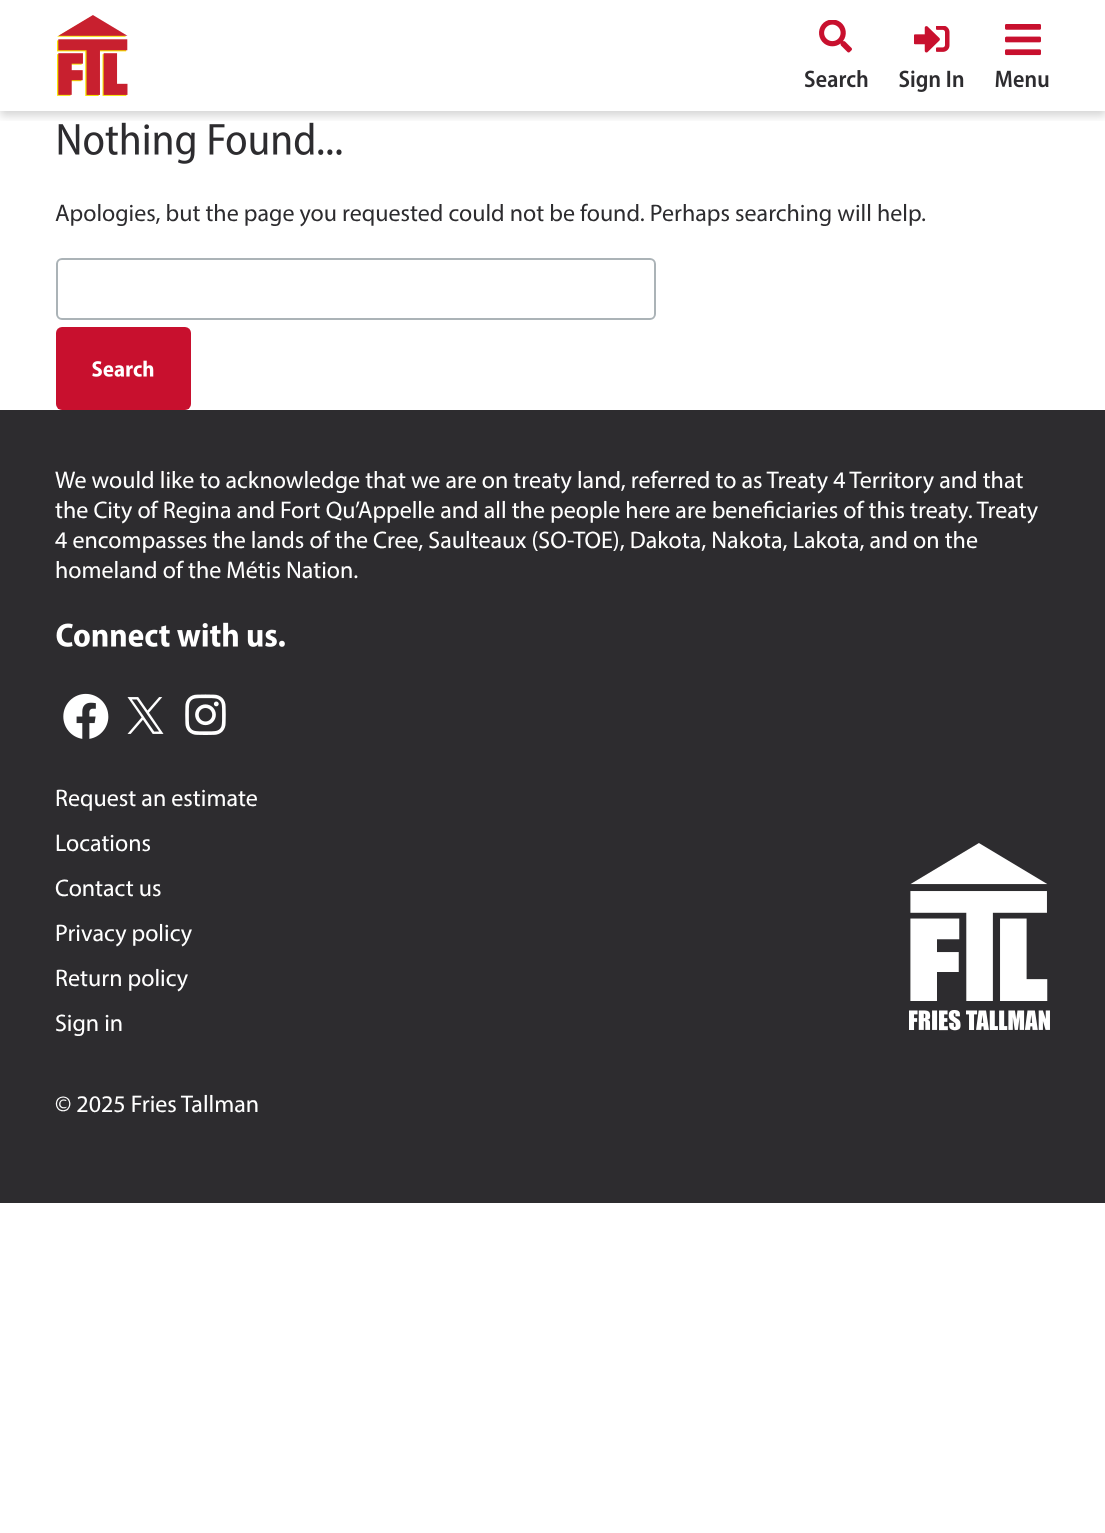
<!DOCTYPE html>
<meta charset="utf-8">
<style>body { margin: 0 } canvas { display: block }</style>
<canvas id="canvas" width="1105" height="1533"></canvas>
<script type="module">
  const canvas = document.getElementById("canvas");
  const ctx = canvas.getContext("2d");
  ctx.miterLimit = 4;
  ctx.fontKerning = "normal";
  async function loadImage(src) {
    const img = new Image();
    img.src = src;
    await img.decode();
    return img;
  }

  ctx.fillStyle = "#ffffff";
  ctx.fillRect(0, 0, 1105, 1533);
  ctx.drawImage(await loadImage("img8.png"), 58, 122, 284, 42);
  ctx.save();
  ctx.beginPath();
  ctx.rect(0, 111, 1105, 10);
  ctx.clip();
  ctx.fillStyle = "rgba(0, 0, 0, 0.16)";
  ctx.filter = "blur(4.5px)";
  ctx.beginPath();
  ctx.rect(0, 5, 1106, 111);
  ctx.fill();
  ctx.filter = "none";
  ctx.restore();
  ctx.drawImage(await loadImage("img1.png"), 57, 15, 71, 81);
  ctx.drawImage(await loadImage("img2.png"), 819, 20, 33, 33);
  ctx.drawImage(await loadImage("img3.png"), 804, 70, 64, 18);
  ctx.drawImage(await loadImage("img4.png"), 914, 26, 36, 27);
  ctx.drawImage(await loadImage("img5.png"), 899, 70, 65, 22);
  ctx.drawImage(await loadImage("img6.png"), 1005, 24, 36, 32);
  ctx.drawImage(await loadImage("img7.png"), 995, 70, 54, 18);
  ctx.font = "24px Myriad";
  ctx.fillStyle = "#2d2c2f";
  ctx.fillText("Apologies, but the page you requested could not be found. Perhaps searching will help.", 55, 221);
  ctx.beginPath();
  ctx.roundRect(57, 259, 598, 60, 5);
  ctx.strokeStyle = "#abb3b7";
  ctx.lineWidth = 2;
  ctx.stroke();
  ctx.fillStyle = "#c8102e";
  ctx.beginPath();
  ctx.roundRect(56, 327, 135, 83, 6);
  ctx.fill();
  ctx.drawImage(await loadImage("img9.png"), 92, 360, 62, 17);
  ctx.fillStyle = "#2d2c2f";
  ctx.fillRect(0, 410, 1105, 793);
  ctx.fillStyle = "#ffffff";
  ctx.fillText("We would like to acknowledge that we are on treaty land, referred to as Treaty 4 Territory and that", 55, 488);
  ctx.fillText("the City of Regina and Fort Qu’Appelle and all the people here are beneficiaries of this treaty. Treaty", 55, 518);
  ctx.fillText("4 encompasses the lands of the Cree, Saulteaux (SO-TOE), Dakota, Nakota, Lakota, and on the", 55, 548);
  ctx.fillText("homeland of the Métis Nation.", 55, 578);
  ctx.drawImage(await loadImage("img10.png"), 56, 622, 229, 25);
  ctx.drawImage(await loadImage("img11.png"), 63, 693, 46, 46);
  ctx.drawImage(await loadImage("img12.png"), 127, 697, 37, 37);
  ctx.drawImage(await loadImage("img13.png"), 185, 694, 41, 41);
  ctx.fillText("Request an estimate", 55, 806);
  ctx.fillText("Locations", 55, 851);
  ctx.fillText("Contact us", 55, 896);
  ctx.fillText("Privacy policy", 55, 941);
  ctx.fillText("Return policy", 55, 986);
  ctx.fillText("Sign in", 55, 1031);
  ctx.drawImage(await loadImage("img14.png"), 909, 843, 141, 188);
  ctx.fillText("© 2025 Fries Tallman", 55, 1112);
</script>
